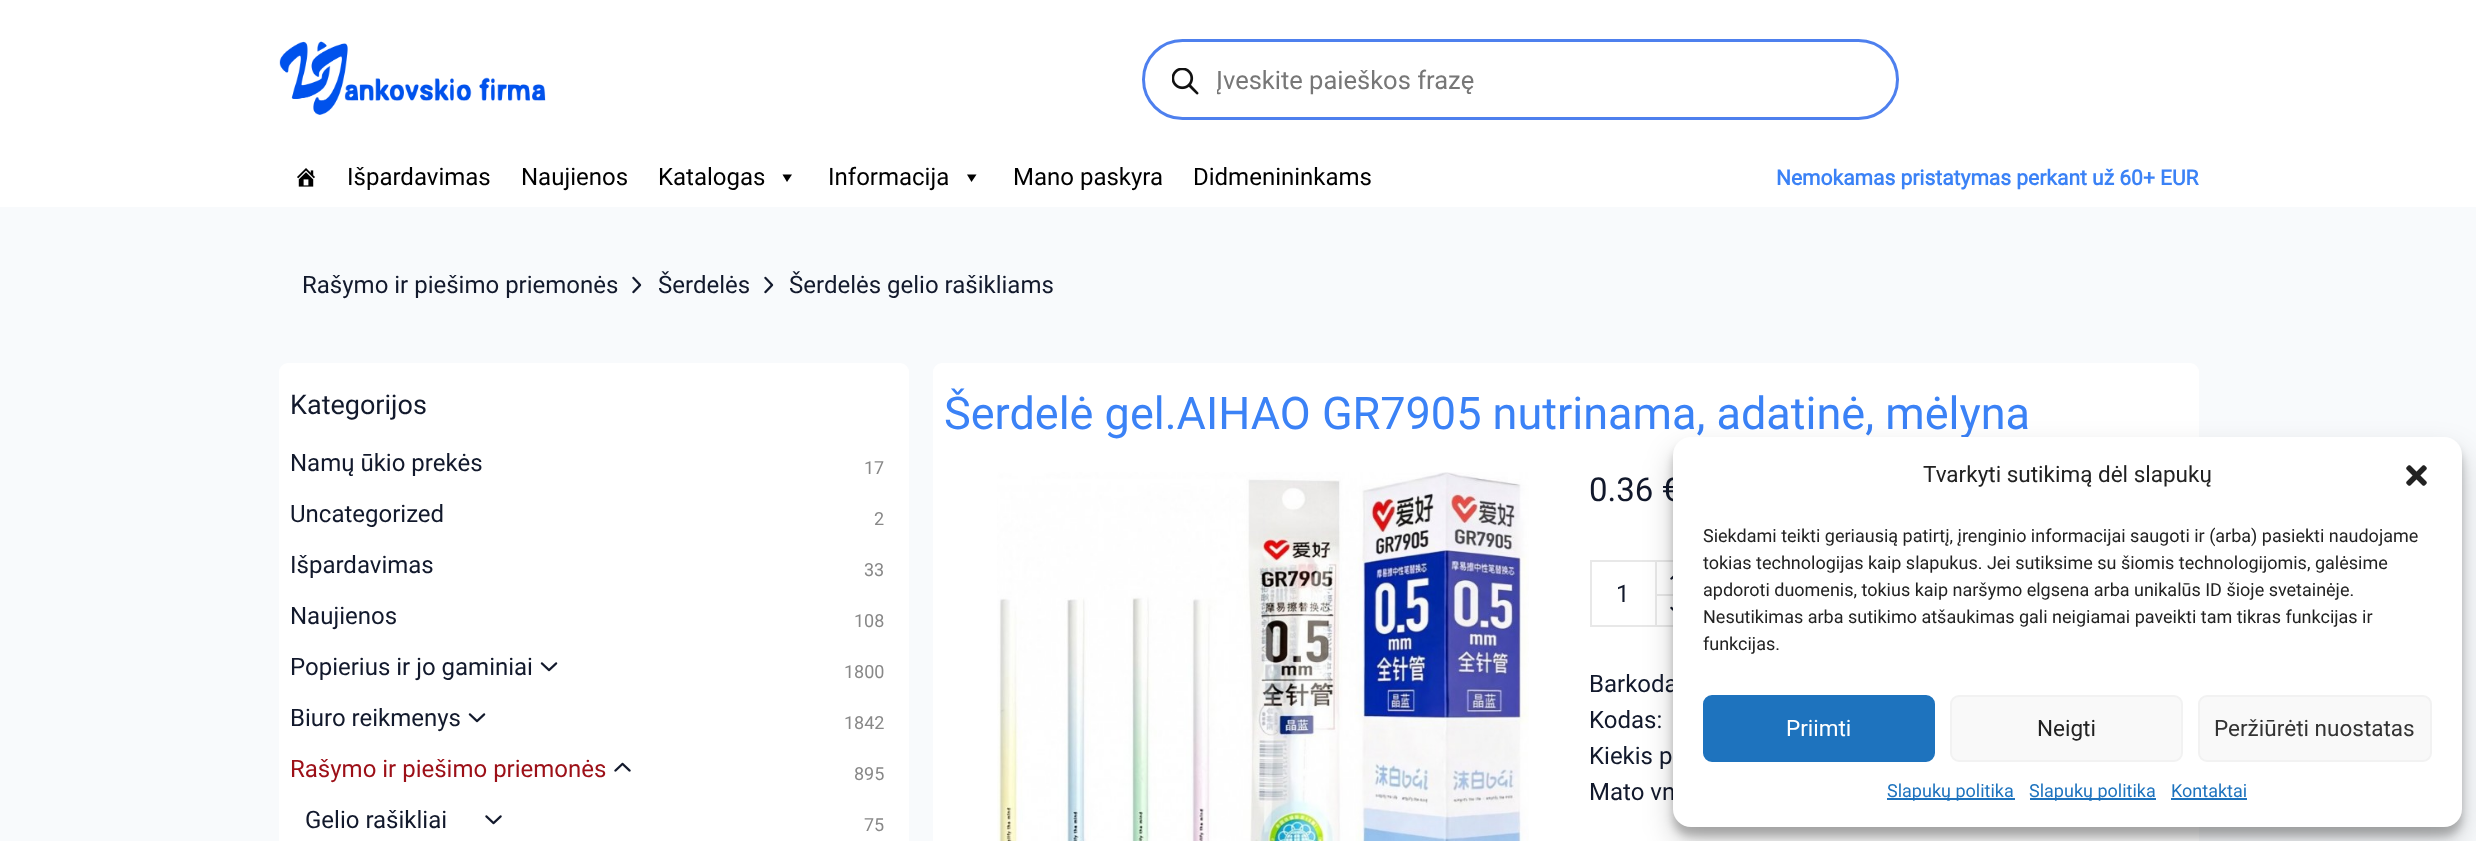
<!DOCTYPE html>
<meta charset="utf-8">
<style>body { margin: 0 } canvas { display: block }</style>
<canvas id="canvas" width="2476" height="841"></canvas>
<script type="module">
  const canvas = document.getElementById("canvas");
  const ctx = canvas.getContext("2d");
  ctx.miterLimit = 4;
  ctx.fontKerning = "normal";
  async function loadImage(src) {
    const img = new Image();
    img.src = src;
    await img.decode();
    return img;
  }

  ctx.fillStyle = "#ffffff";
  ctx.fillRect(0, 0, 2476, 841);
  ctx.drawImage(await loadImage("img1.png"), 279, 41, 267, 74);
  ctx.beginPath();
  ctx.roundRect(1143.5, 40.5, 754, 78, 39);
  ctx.strokeStyle = "#4e80ee";
  ctx.lineWidth = 3;
  ctx.stroke();
  ctx.drawImage(await loadImage("img2.png"), 1172, 68, 27, 27);
  ctx.save();
  ctx.beginPath();
  ctx.rect(1217, 65, 643, 30);
  ctx.clip();
  ctx.font = "25.5px Roboto";
  ctx.fillStyle = "#777777";
  ctx.fillText("Įveskite paieškos frazę", 1216, 89);
  ctx.restore();
  ctx.drawImage(await loadImage("img3.png"), 297, 168, 18, 19);
  ctx.font = "24px Roboto";
  ctx.fillStyle = "#000000";
  ctx.fillText("Išpardavimas", 347, 185);
  ctx.fillText("Naujienos", 521, 185);
  ctx.fillText("Katalogas", 658, 185);
  ctx.beginPath();
  ctx.moveTo(792, 174.5);
  ctx.lineTo(787, 182);
  ctx.lineTo(782.5, 174.5);
  ctx.closePath();
  ctx.fill();
  ctx.fillText("Informacija", 828, 185);
  ctx.beginPath();
  ctx.moveTo(976.5, 174.5);
  ctx.lineTo(971.5, 182);
  ctx.lineTo(967, 174.5);
  ctx.closePath();
  ctx.fill();
  ctx.fillText("Mano paskyra", 1013, 185);
  ctx.fillText("Didmenininkams", 1193, 185);
  ctx.font = "bold 21px Roboto";
  ctx.fillStyle = "#3b82f6";
  ctx.fillText("Nemokamas pristatymas perkant už 60+ EUR", 1776, 185);
  ctx.fillStyle = "#f8fafc";
  ctx.fillRect(0, 207, 2476, 634);
  ctx.font = "24px Roboto";
  ctx.fillStyle = "#12192c";
  ctx.fillText("Rašymo ir piešimo priemonės", 302, 293);
  ctx.drawImage(await loadImage("img4.png"), 632, 276, 10, 18);
  ctx.fillText("Šerdelės", 658, 293);
  ctx.drawImage(await loadImage("img4.png"), 764, 276, 10, 18);
  ctx.fillText("Šerdelės gelio rašikliams", 789, 293);
  ctx.fillStyle = "#ffffff";
  ctx.beginPath();
  ctx.roundRect(279, 363, 630, 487, 9);
  ctx.fill();
  ctx.font = "27px Roboto";
  ctx.fillStyle = "#12192c";
  ctx.fillText("Kategorijos", 290, 414);
  ctx.font = "24px Roboto";
  ctx.fillText("Namų ūkio prekės", 290, 471);
  ctx.font = "18px Roboto";
  ctx.fillStyle = "#888888";
  ctx.fillText("17", 864, 474);
  ctx.font = "24px Roboto";
  ctx.fillStyle = "#12192c";
  ctx.fillText("Uncategorized", 290, 522);
  ctx.font = "18px Roboto";
  ctx.fillStyle = "#888888";
  ctx.fillText("2", 874, 525);
  ctx.font = "24px Roboto";
  ctx.fillStyle = "#12192c";
  ctx.fillText("Išpardavimas", 290, 573);
  ctx.font = "18px Roboto";
  ctx.fillStyle = "#888888";
  ctx.fillText("33", 864, 576);
  ctx.font = "24px Roboto";
  ctx.fillStyle = "#12192c";
  ctx.fillText("Naujienos", 290, 624);
  ctx.font = "18px Roboto";
  ctx.fillStyle = "#888888";
  ctx.fillText("108", 854, 627);
  ctx.font = "24px Roboto";
  ctx.fillStyle = "#12192c";
  ctx.fillText("Popierius ir jo gaminiai", 290, 675);
  ctx.drawImage(await loadImage("img5.png"), 540, 662, 18, 10);
  ctx.font = "18px Roboto";
  ctx.fillStyle = "#888888";
  ctx.fillText("1800", 844, 678);
  ctx.font = "24px Roboto";
  ctx.fillStyle = "#12192c";
  ctx.fillText("Biuro reikmenys", 290, 726);
  ctx.drawImage(await loadImage("img5.png"), 468, 713, 18, 10);
  ctx.font = "18px Roboto";
  ctx.fillStyle = "#888888";
  ctx.fillText("1842", 844, 729);
  ctx.font = "24px Roboto";
  ctx.fillStyle = "#9c0f17";
  ctx.fillText("Rašymo ir piešimo priemonės", 290, 777);
  ctx.drawImage(await loadImage("img6.png"), 614, 762, 17, 10);
  ctx.font = "18px Roboto";
  ctx.fillStyle = "#888888";
  ctx.fillText("895", 854, 780);
  ctx.font = "24px Roboto";
  ctx.fillStyle = "#12192c";
  ctx.fillText("Gelio rašikliai", 305, 828);
  ctx.drawImage(await loadImage("img7.png"), 485, 815, 17, 10);
  ctx.font = "18px Roboto";
  ctx.fillStyle = "#888888";
  ctx.fillText("75", 864, 831);
  ctx.fillStyle = "#ffffff";
  ctx.beginPath();
  ctx.roundRect(933, 363, 1266, 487, 9);
  ctx.fill();
  ctx.font = "45px Roboto";
  ctx.fillStyle = "#3b82f6";
  ctx.fillText("Šerdelė gel.AIHAO GR7905 nutrinama, adatinė, mėlyna", 944, 429);
  ctx.drawImage(await loadImage("img8.png"), 997, 472, 532, 369);
  ctx.font = "33px Roboto";
  ctx.fillStyle = "#12192c";
  ctx.fillText("0.36 €", 1589, 501);
  ctx.strokeStyle = "#e8e8e8";
  ctx.lineWidth = 2;
  ctx.strokeRect(1591, 561, 114, 65);
  ctx.fillStyle = "#e8e8e8";
  ctx.fillRect(1655, 561, 2, 65);
  ctx.font = "24px Roboto";
  ctx.fillStyle = "#12192c";
  ctx.fillText("1", 1616, 602);
  ctx.fillStyle = "#e8e8e8";
  ctx.fillRect(1656, 594, 17, 2);
  ctx.drawImage(await loadImage("img9.png"), 1670, 575, 3, 5);
  ctx.drawImage(await loadImage("img10.png"), 1670, 606, 3, 5);
  ctx.fillStyle = "#12192c";
  ctx.fillText("Barkoda", 1589, 692);
  ctx.fillText("Kodas:", 1589, 728);
  ctx.fillText("Kiekis p", 1589, 764);
  ctx.fillText("Mato vn", 1589, 800);
  ctx.fillStyle = "rgba(0, 0, 0, 0.23)";
  ctx.filter = "blur(4.5px)";
  ctx.beginPath();
  ctx.roundRect(1673, 446, 789, 390, 18);
  ctx.fill();
  ctx.filter = "none";
  ctx.fillStyle = "rgba(0, 0, 0, 0.19)";
  ctx.filter = "blur(15px)";
  ctx.beginPath();
  ctx.roundRect(1673, 452, 789, 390, 18);
  ctx.fill();
  ctx.filter = "none";
  ctx.fillStyle = "#ffffff";
  ctx.beginPath();
  ctx.roundRect(1673, 437, 789, 390, 18);
  ctx.fill();
  ctx.font = "22.5px Roboto";
  ctx.fillStyle = "#222222";
  ctx.fillText("Tvarkyti sutikimą dėl slapukų", 1923, 482);
  ctx.drawImage(await loadImage("img11.png"), 2406, 465, 21, 21);
  ctx.font = "18px Roboto";
  ctx.fillText("Siekdami teikti geriausią patirtį, įrenginio informacijai saugoti ir (arba) pasiekti naudojame", 1703, 542);
  ctx.fillText("tokias technologijas kaip slapukus. Jei sutiksime su šiomis technologijomis, galėsime", 1703, 569);
  ctx.fillText("apdoroti duomenis, tokius kaip naršymo elgsena arba unikalūs ID šioje svetainėje.", 1703, 596);
  ctx.fillText("Nesutikimas arba sutikimo atšaukimas gali neigiamai paveikti tam tikras funkcijas ir", 1703, 623);
  ctx.fillText("funkcijas.", 1703, 650);
  ctx.fillStyle = "#1e73be";
  ctx.beginPath();
  ctx.roundRect(1704, 696, 230, 65, 8);
  ctx.fill();
  ctx.strokeStyle = "#1e73be";
  ctx.stroke();
  ctx.font = "22.5px Roboto";
  ctx.fillStyle = "#ffffff";
  ctx.fillText("Priimti", 1786, 736);
  ctx.fillStyle = "#f9f9f9";
  ctx.beginPath();
  ctx.roundRect(1951, 696, 231, 65, 8);
  ctx.fill();
  ctx.strokeStyle = "#f2f2f2";
  ctx.stroke();
  ctx.fillStyle = "#222222";
  ctx.fillText("Neigti", 2037, 736);
  ctx.fillStyle = "#f9f9f9";
  ctx.beginPath();
  ctx.roundRect(2199, 696, 232, 65, 8);
  ctx.fill();
  ctx.stroke();
  ctx.fillStyle = "#333333";
  ctx.fillText("Peržiūrėti nuostatas", 2214, 736);
  ctx.fillStyle = "#1e73be";
  ctx.fillRect(1887, 798, 128, 2);
  ctx.font = "18px Roboto";
  ctx.fillText("Slapukų politika", 1887, 797);
  ctx.fillRect(2030, 798, 126, 2);
  ctx.fillText("Slapukų politika", 2029, 797);
  ctx.fillText("Kontaktai", 2171, 797);
  ctx.fillRect(2171, 798, 76, 2);
</script>
